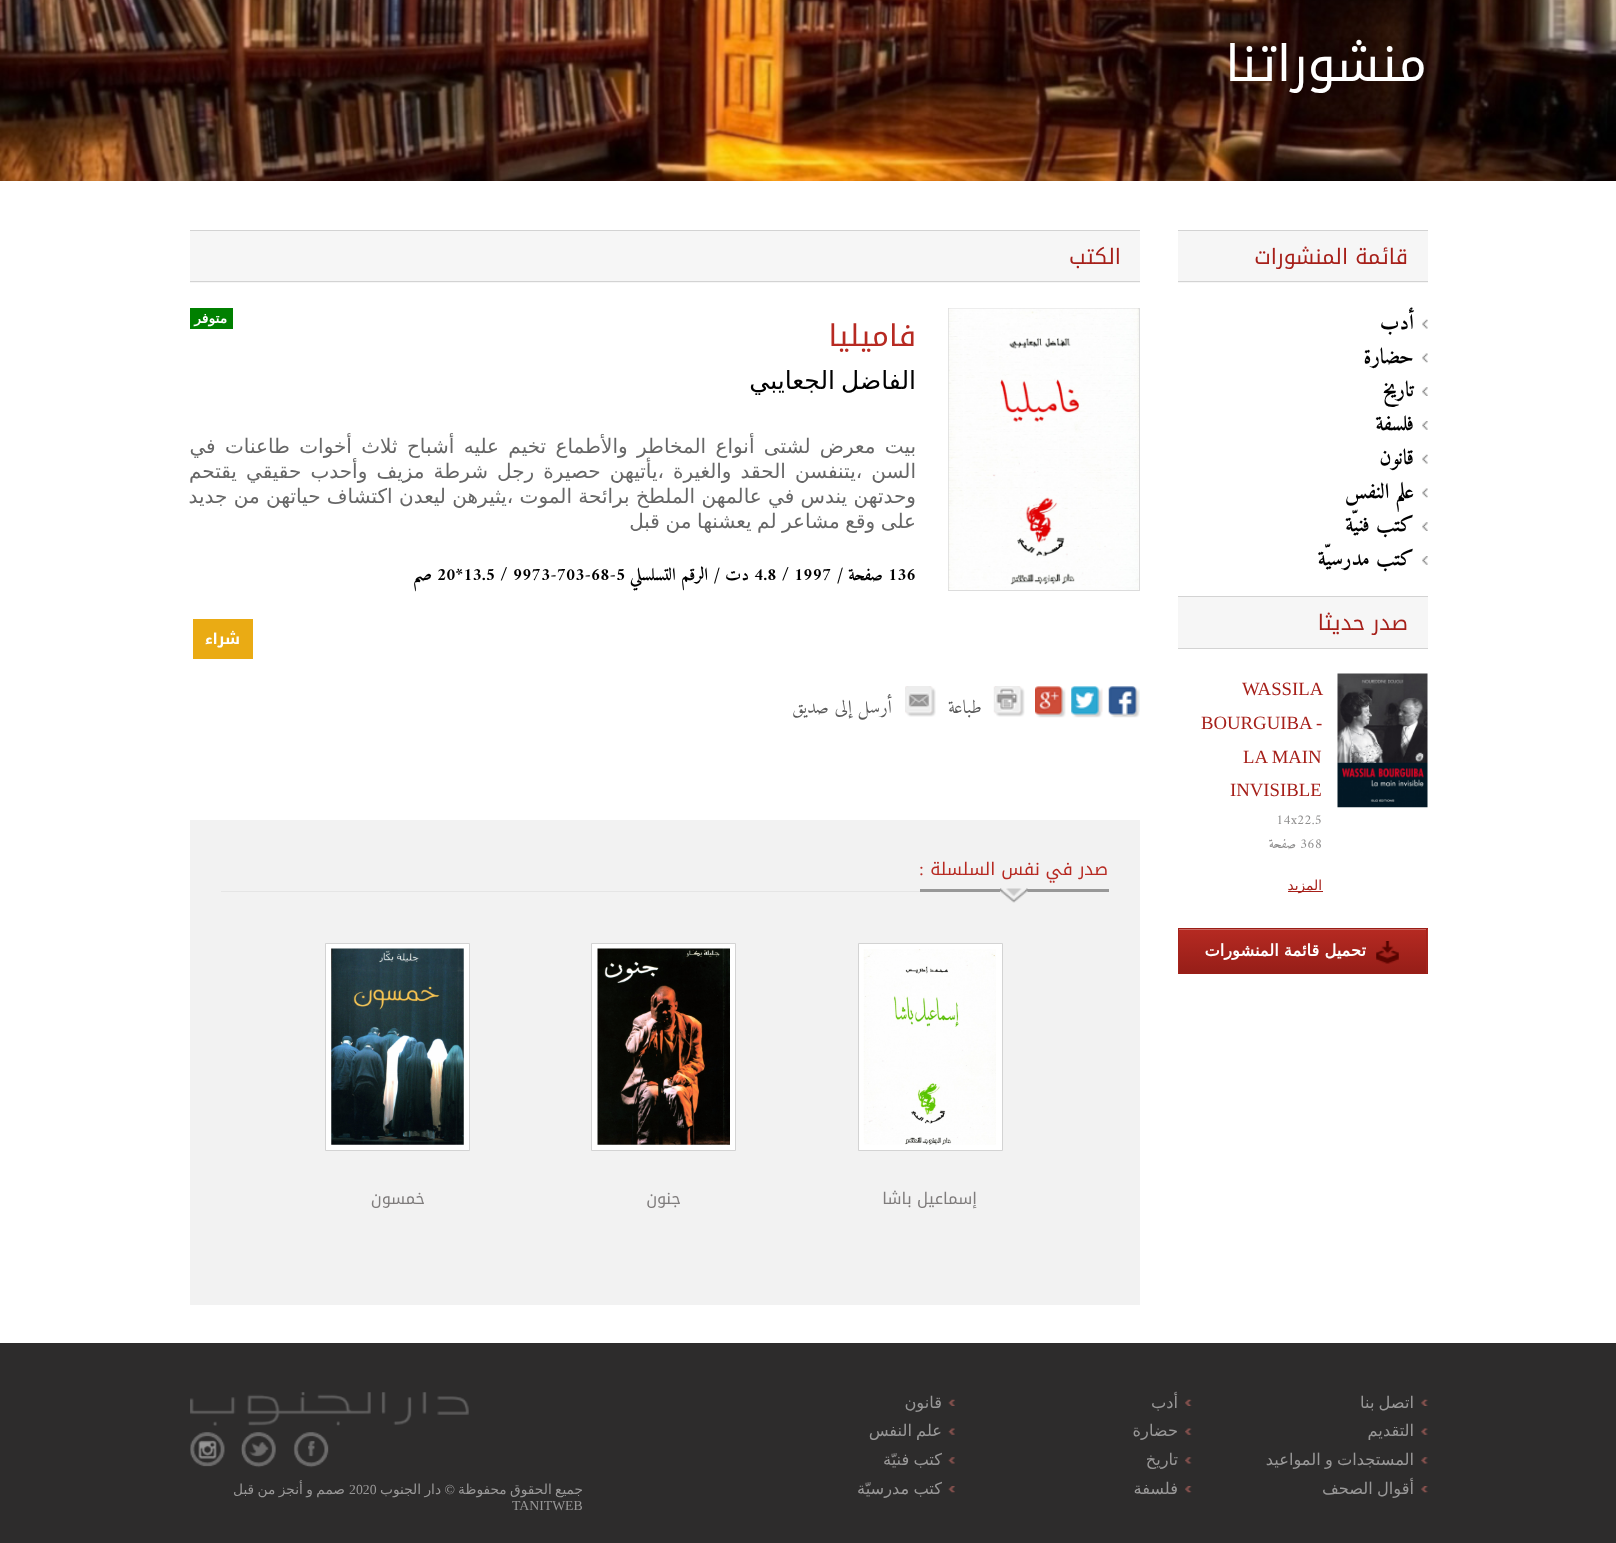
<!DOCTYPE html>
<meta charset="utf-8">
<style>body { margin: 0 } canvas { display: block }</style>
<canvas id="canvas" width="1616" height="1543"></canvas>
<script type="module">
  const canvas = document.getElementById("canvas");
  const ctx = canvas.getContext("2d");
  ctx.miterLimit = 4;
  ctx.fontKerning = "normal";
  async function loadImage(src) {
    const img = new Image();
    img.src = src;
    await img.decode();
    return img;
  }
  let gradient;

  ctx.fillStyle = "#ffffff";
  ctx.fillRect(0, 0, 1616, 1543);
  ctx.drawImage(await loadImage("img1.png"), 0, 0, 1616, 181);
  ctx.direction = "rtl";
  ctx.font = "50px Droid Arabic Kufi";
  ctx.fillText("منشوراتنا", 1427, 81);
  ctx.fillStyle = "#f6f6f6";
  ctx.fillRect(1178, 231, 250, 52);
  ctx.fillStyle = "#d3d3d3";
  ctx.fillRect(1178, 230, 250, 1);
  ctx.fillRect(1178, 281, 250, 1);
  ctx.font = "21.25px Droid Arabic Kufi";
  ctx.fillStyle = "#a61f19";
  ctx.fillText("قائمة المنشورات", 1408, 264);
  ctx.drawImage(await loadImage("img2.png"), 1422, 319, 6, 10);
  ctx.font = "bold 21.25px Amiri";
  ctx.fillStyle = "#000000";
  ctx.fillText("أدب", 1414, 329);
  ctx.drawImage(await loadImage("img3.png"), 1422, 353, 6, 10);
  ctx.fillText("حضارة", 1414, 363);
  ctx.drawImage(await loadImage("img4.png"), 1422, 387, 6, 9);
  ctx.fillText("تاريخ", 1414, 396);
  ctx.drawImage(await loadImage("img5.png"), 1422, 421, 6, 9);
  ctx.fillText("فلسفة", 1414, 430);
  ctx.drawImage(await loadImage("img2.png"), 1422, 454, 6, 10);
  ctx.fillText("قانون", 1414, 464);
  ctx.drawImage(await loadImage("img3.png"), 1422, 488, 6, 10);
  ctx.fillText("علم النفس", 1414, 498);
  ctx.drawImage(await loadImage("img4.png"), 1422, 522, 6, 9);
  ctx.fillText("كتب فنيّة", 1414, 531);
  ctx.drawImage(await loadImage("img5.png"), 1422, 556, 6, 9);
  ctx.fillText("كتب مدرسيّة", 1414, 565);
  ctx.fillStyle = "#f6f6f6";
  ctx.fillRect(1178, 597, 250, 51);
  ctx.fillStyle = "#d3d3d3";
  ctx.fillRect(1178, 596, 250, 1);
  ctx.fillRect(1178, 648, 250, 1);
  ctx.font = "21.25px Droid Arabic Kufi";
  ctx.fillStyle = "#a61f19";
  ctx.fillText("صدر حديثا", 1408, 630);
  ctx.drawImage(await loadImage("img6.png"), 1337, 673, 91, 135);
  ctx.direction = "ltr";
  ctx.font = "18.75px Liberation Serif";
  ctx.fillText("WASSILA", 1242, 695);
  ctx.fillText("BOURGUIBA -", 1201, 729);
  ctx.fillText("LA MAIN", 1243, 763);
  ctx.fillText("INVISIBLE", 1230, 796);
  ctx.font = "13.75px Amiri";
  ctx.fillStyle = "#8e8d8d";
  ctx.fillText("14x22.5", 1276, 824);
  ctx.fillText("368", 1300, 848);
  ctx.direction = "rtl";
  ctx.fillText("صفحة", 1296, 848);
  ctx.fillStyle = "#a61f19";
  ctx.fillRect(1288, 891, 35, 1);
  ctx.font = "13.75px DejaVu Sans";
  ctx.fillText("المزيد", 1322, 890);
  ctx.fillStyle = "rgba(0, 0, 0, 0.3)";
  ctx.filter = "blur(0.5px)";
  ctx.beginPath();
  ctx.rect(1178, 928, 250, 46);
  ctx.fill();
  ctx.filter = "none";
  gradient = ctx.createLinearGradient(1303, 929, 1303, 973);
  gradient.addColorStop(0, "#b62a22");
  gradient.addColorStop(1, "#961e18");
  ctx.fillStyle = gradient;
  ctx.fillRect(1179, 929, 249, 44);
  ctx.fillStyle = "#cc6a64";
  ctx.fillRect(1179, 929, 247, 1);
  ctx.fillStyle = "#9a1e17";
  ctx.fillRect(1178, 928, 250, 1);
  ctx.fillStyle = "#a5231c";
  ctx.fillRect(1426, 928, 1, 46);
  ctx.fillStyle = "#9a1e17";
  ctx.fillRect(1178, 973, 250, 1);
  ctx.fillStyle = "#a5231c";
  ctx.fillRect(1178, 928, 1, 46);
  ctx.drawImage(await loadImage("img7.png"), 1376, 941, 23, 23);
  ctx.font = "bold 16.25px DejaVu Sans";
  ctx.fillStyle = "#ffffff";
  ctx.fillText("تحميل قائمة المنشورات", 1366, 956);
  ctx.fillStyle = "#f6f6f6";
  ctx.fillRect(190, 231, 950, 52);
  ctx.fillStyle = "#d3d3d3";
  ctx.fillRect(190, 230, 950, 1);
  ctx.fillRect(190, 281, 950, 1);
  ctx.font = "21.25px Droid Arabic Kufi";
  ctx.fillStyle = "#a61f19";
  ctx.fillText("الكتب", 1121, 264);
  ctx.strokeStyle = "#dcdcdc";
  ctx.strokeRect(948.5, 308.5, 191, 282);
  ctx.drawImage(await loadImage("img8.png"), 948, 308, 191, 282);
  ctx.fillStyle = "#008000";
  ctx.fillRect(190, 308, 43, 21);
  ctx.font = "bold 13.75px DejaVu Sans";
  ctx.fillStyle = "#ffffff";
  ctx.fillText("متوفر", 227, 323);
  ctx.font = "30px Droid Arabic Kufi";
  ctx.fillStyle = "#b72a22";
  ctx.fillText("فاميليا", 916, 346);
  ctx.wordSpacing = "-2px";
  ctx.font = "25px DejaVu Sans";
  ctx.fillStyle = "#000000";
  ctx.fillText("الفاضل الجعايبي", 916, 389);
  ctx.wordSpacing = "3px";
  ctx.font = "20px DejaVu Sans";
  ctx.fillStyle = "#676767";
  ctx.fillText("بيت معرض لشتى أنواع المخاطر والأطماع تخيم عليه أشباح ثلاث أخوات طاعنات في", 916, 453);
  ctx.wordSpacing = "2.75px";
  ctx.fillText("السن ،يتنفسن الحقد والغيرة ،يأتيهن حصيرة رجل شرطة مزيف وأحدب حقيقي يقتحم", 916, 478);
  ctx.wordSpacing = "0px";
  ctx.fillText("وحدتهن يندس في عالمهن الملطخ برائحة الموت ،يثيرهن ليعدن اكتشاف حياتهن من جديد", 916, 503);
  ctx.wordSpacing = "-0.75px";
  ctx.fillText("على وقع مشاعر لم يعشنها من قبل", 916, 528);
  ctx.wordSpacing = "0px";
  ctx.direction = "ltr";
  ctx.font = "bold 17.5px Amiri";
  ctx.fillStyle = "#000000";
  ctx.fillText("136", 888, 580);
  ctx.direction = "rtl";
  ctx.fillText("صفحة /", 883, 580);
  ctx.direction = "ltr";
  ctx.fillText("4.8 / 1997", 754, 580);
  ctx.direction = "rtl";
  ctx.fillText("دت /", 749, 580);
  ctx.fillText("الرقم التسلسلي", 708, 580);
  ctx.direction = "ltr";
  ctx.fillText("9973-703-68-5", 513, 580);
  ctx.fillText("20*13.5 /", 437, 580);
  ctx.direction = "rtl";
  ctx.fillText("صم", 432, 580);
  ctx.fillStyle = "#eaab14";
  ctx.fillRect(193, 619, 60, 40);
  ctx.font = "bold 15px Droid Arabic Kufi";
  ctx.fillStyle = "#ffffff";
  ctx.fillText("شراء", 240, 644);
  ctx.drawImage(await loadImage("img9.png"), 1108, 686, 32, 32);
  ctx.drawImage(await loadImage("img10.png"), 1071, 686, 32, 32);
  ctx.drawImage(await loadImage("img11.png"), 1035, 686, 31, 32);
  ctx.drawImage(await loadImage("img12.png"), 993, 686, 32, 31);
  ctx.font = "18.75px Amiri";
  ctx.fillStyle = "#5b5b5b";
  ctx.fillText("طباعة", 982, 713);
  ctx.drawImage(await loadImage("img13.png"), 905, 686, 31, 31);
  ctx.fillText("أرسل إلى صديق", 892, 713);
  ctx.fillStyle = "#f2f2f2";
  ctx.fillRect(190, 820, 950, 485);
  ctx.fillStyle = "#e5e5e5";
  ctx.fillRect(221, 891, 699, 1);
  ctx.fillStyle = "#989898";
  ctx.fillRect(920, 889, 189, 3);
  ctx.font = "17.5px Droid Arabic Kufi";
  ctx.fillStyle = "#b72a22";
  ctx.fillText("صدر في نفس السلسلة", 1108, 875);
  ctx.direction = "ltr";
  ctx.font = "17.5px Liberation Serif";
  ctx.fillText(":", 919, 875);
  ctx.drawImage(await loadImage("img14.png"), 1000, 888, 28, 15);
  ctx.fillStyle = "#ffffff";
  ctx.beginPath();
  ctx.rect(858.5, 943.5, 144, 207);
  ctx.fill();
  ctx.strokeStyle = "#d3d3d3";
  ctx.stroke();
  ctx.drawImage(await loadImage("img15.png"), 863, 949, 133, 196);
  ctx.direction = "rtl";
  ctx.font = "16.25px Droid Arabic Kufi";
  ctx.fillStyle = "#7f7c7c";
  ctx.fillText("إسماعيل باشا", 977, 1204);
  ctx.fillStyle = "#ffffff";
  ctx.beginPath();
  ctx.rect(591.5, 943.5, 144, 207);
  ctx.fill();
  ctx.stroke();
  ctx.drawImage(await loadImage("img16.png"), 597, 948, 133, 197);
  ctx.fillStyle = "#7f7c7c";
  ctx.fillText("جنون", 681, 1204);
  ctx.fillStyle = "#ffffff";
  ctx.beginPath();
  ctx.rect(325.5, 943.5, 144, 207);
  ctx.fill();
  ctx.stroke();
  ctx.drawImage(await loadImage("img17.png"), 331, 948, 133, 197);
  ctx.fillStyle = "#7f7c7c";
  ctx.fillText("خمسون", 425, 1204);
  ctx.fillStyle = "#2d2c2c";
  ctx.fillRect(0, 1343, 1616, 200);
  ctx.drawImage(await loadImage("img18.png"), 1421, 1399, 7, 7);
  ctx.wordSpacing = "-1px";
  ctx.font = "16.25px DejaVu Sans";
  ctx.fillStyle = "#999898";
  ctx.fillText("اتصل بنا", 1414, 1408);
  ctx.drawImage(await loadImage("img19.png"), 1421, 1428, 7, 7);
  ctx.wordSpacing = "0px";
  ctx.fillText("التقديم", 1414, 1436);
  ctx.drawImage(await loadImage("img20.png"), 1421, 1457, 7, 7);
  ctx.wordSpacing = "-1px";
  ctx.fillText("المستجدات و المواعيد", 1414, 1465);
  ctx.drawImage(await loadImage("img21.png"), 1421, 1486, 7, 7);
  ctx.fillText("أقوال الصحف", 1414, 1494);
  ctx.drawImage(await loadImage("img22.png"), 1185, 1399, 7, 7);
  ctx.wordSpacing = "0px";
  ctx.fillText("أدب", 1178, 1408);
  ctx.drawImage(await loadImage("img23.png"), 1185, 1428, 7, 7);
  ctx.fillText("حضارة", 1178, 1436);
  ctx.drawImage(await loadImage("img24.png"), 1185, 1457, 7, 7);
  ctx.fillText("تاريخ", 1178, 1465);
  ctx.drawImage(await loadImage("img25.png"), 1185, 1486, 7, 7);
  ctx.fillText("فلسفة", 1178, 1494);
  ctx.drawImage(await loadImage("img26.png"), 948, 1399, 7, 7);
  ctx.fillText("قانون", 942, 1408);
  ctx.drawImage(await loadImage("img27.png"), 948, 1428, 7, 7);
  ctx.wordSpacing = "-1px";
  ctx.fillText("علم النفس", 942, 1436);
  ctx.drawImage(await loadImage("img28.png"), 948, 1457, 7, 7);
  ctx.fillText("كتب فنيّة", 942, 1465);
  ctx.drawImage(await loadImage("img29.png"), 948, 1486, 7, 7);
  ctx.fillText("كتب مدرسيّة", 942, 1494);
  ctx.drawImage(await loadImage("img30.png"), 190, 1392, 279, 34);
  ctx.drawImage(await loadImage("img31.png"), 293, 1432, 36, 36);
  ctx.drawImage(await loadImage("img32.png"), 241, 1432, 35, 36);
  ctx.drawImage(await loadImage("img33.png"), 190, 1432, 35, 35);
  ctx.font = "13.75px DejaVu Sans";
  ctx.fillText("جميع الحقوق محفوظة", 583, 1494);
  ctx.wordSpacing = "0px";
  ctx.font = "13.75px Liberation Serif";
  ctx.fillText("©", 455, 1494);
  ctx.wordSpacing = "-1px";
  ctx.font = "13.75px DejaVu Sans";
  ctx.fillText("دار الجنوب", 441, 1494);
  ctx.wordSpacing = "0px";
  ctx.direction = "ltr";
  ctx.font = "13.75px Liberation Serif";
  ctx.fillText("2020", 349, 1494);
  ctx.wordSpacing = "-1px";
  ctx.direction = "rtl";
  ctx.font = "13.75px DejaVu Sans";
  ctx.fillText("صمم و أنجز من قبل", 345, 1494);
  ctx.wordSpacing = "0px";
  ctx.direction = "ltr";
  ctx.font = "13.75px Liberation Serif";
  ctx.fillText("TANITWEB", 512, 1510);
</script>
